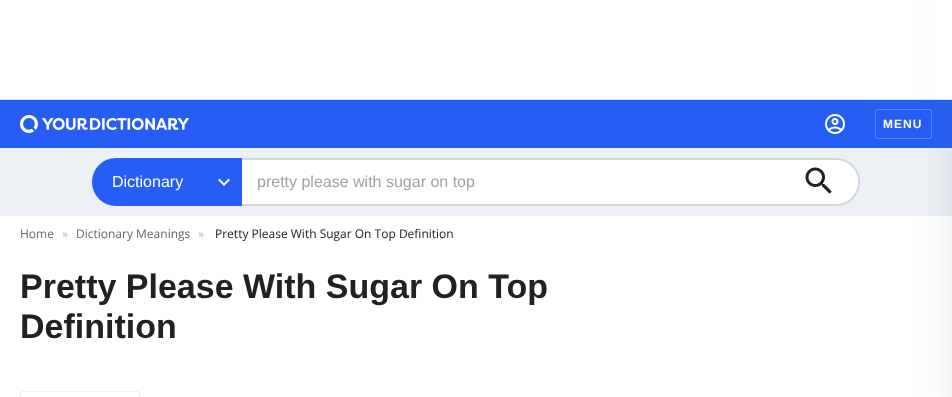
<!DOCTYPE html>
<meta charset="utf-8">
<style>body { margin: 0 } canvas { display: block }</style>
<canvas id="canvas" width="952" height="397"></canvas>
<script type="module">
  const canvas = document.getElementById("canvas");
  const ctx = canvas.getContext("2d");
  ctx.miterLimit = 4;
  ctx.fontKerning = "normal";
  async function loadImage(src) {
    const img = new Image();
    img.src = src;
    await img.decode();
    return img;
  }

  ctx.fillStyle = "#ffffff";
  ctx.fillRect(0, 0, 952, 397);
  ctx.fillStyle = "#265ef5";
  ctx.fillRect(0, 100, 952, 48);
  ctx.beginPath();
  ctx.roundRect(875.5, 109.5, 56, 29, 1.5);
  ctx.strokeStyle = "#5983ee";
  ctx.stroke();
  ctx.fillStyle = "#edf1f6";
  ctx.fillRect(0, 148, 952, 68);
  ctx.fillStyle = "rgba(84, 110, 122, 0.12)";
  ctx.filter = "blur(15px)";
  ctx.beginPath();
  ctx.rect(947, 1, 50, 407);
  ctx.fill();
  ctx.filter = "none";
  ctx.fillStyle = "#ffffff";
  ctx.fillRect(930, 0, 22, 99);
  ctx.fillStyle = "#dae0e3";
  ctx.fillRect(0, 99, 952, 1);
  ctx.drawImage(await loadImage("img1.png"), 20, 115, 169, 18);
  ctx.drawImage(await loadImage("img2.png"), 825, 114, 20, 20);
  ctx.letterSpacing = "1px";
  ctx.font = "bold 12px Liberation Sans";
  ctx.fillStyle = "#ffffff";
  ctx.fillText("MENU", 883, 128);
  ctx.beginPath();
  ctx.roundRect(93, 159, 766, 46, 23);
  ctx.fill();
  ctx.strokeStyle = "#cfd8dc";
  ctx.lineWidth = 2;
  ctx.stroke();
  ctx.fillStyle = "#265ef5";
  ctx.beginPath();
  ctx.roundRect(92, 158, 150, 48, [24, 0, 0, 24]);
  ctx.fill();
  ctx.letterSpacing = "0px";
  ctx.font = "16px Liberation Sans";
  ctx.fillStyle = "#ffffff";
  ctx.fillText("Dictionary", 112, 187);
  ctx.drawImage(await loadImage("img3.png"), 218, 178, 12, 8);
  ctx.fillStyle = "#a1a1aa";
  ctx.fillText("pretty please with sugar on top", 257, 187);
  ctx.fillStyle = "#ffffff";
  ctx.beginPath();
  ctx.roundRect(798, 160, 60, 44, 22);
  ctx.fill();
  ctx.drawImage(await loadImage("img4.png"), 805, 167, 27, 27);
  ctx.font = "12px Open Sans";
  ctx.fillStyle = "#666666";
  ctx.fillText("Home", 20, 238);
  ctx.fillStyle = "#b0bec5";
  ctx.fillText("»", 62, 238);
  ctx.fillStyle = "#666666";
  ctx.fillText("Dictionary Meanings", 76, 238);
  ctx.fillStyle = "#b0bec5";
  ctx.fillText("»", 198, 238);
  ctx.fillStyle = "#212121";
  ctx.fillText("Pretty Please With Sugar On Top Definition", 215, 238);
  ctx.font = "bold 34px Liberation Sans";
  ctx.fillText("Pretty Please With Sugar On Top", 20, 298);
  ctx.fillText("Definition", 20, 338);
  ctx.fillStyle = "#edf1f6";
  ctx.fillRect(21, 391, 118, 1);
  ctx.fillRect(139, 392, 1, 5);
  ctx.fillRect(20, 392, 1, 5);
</script>
